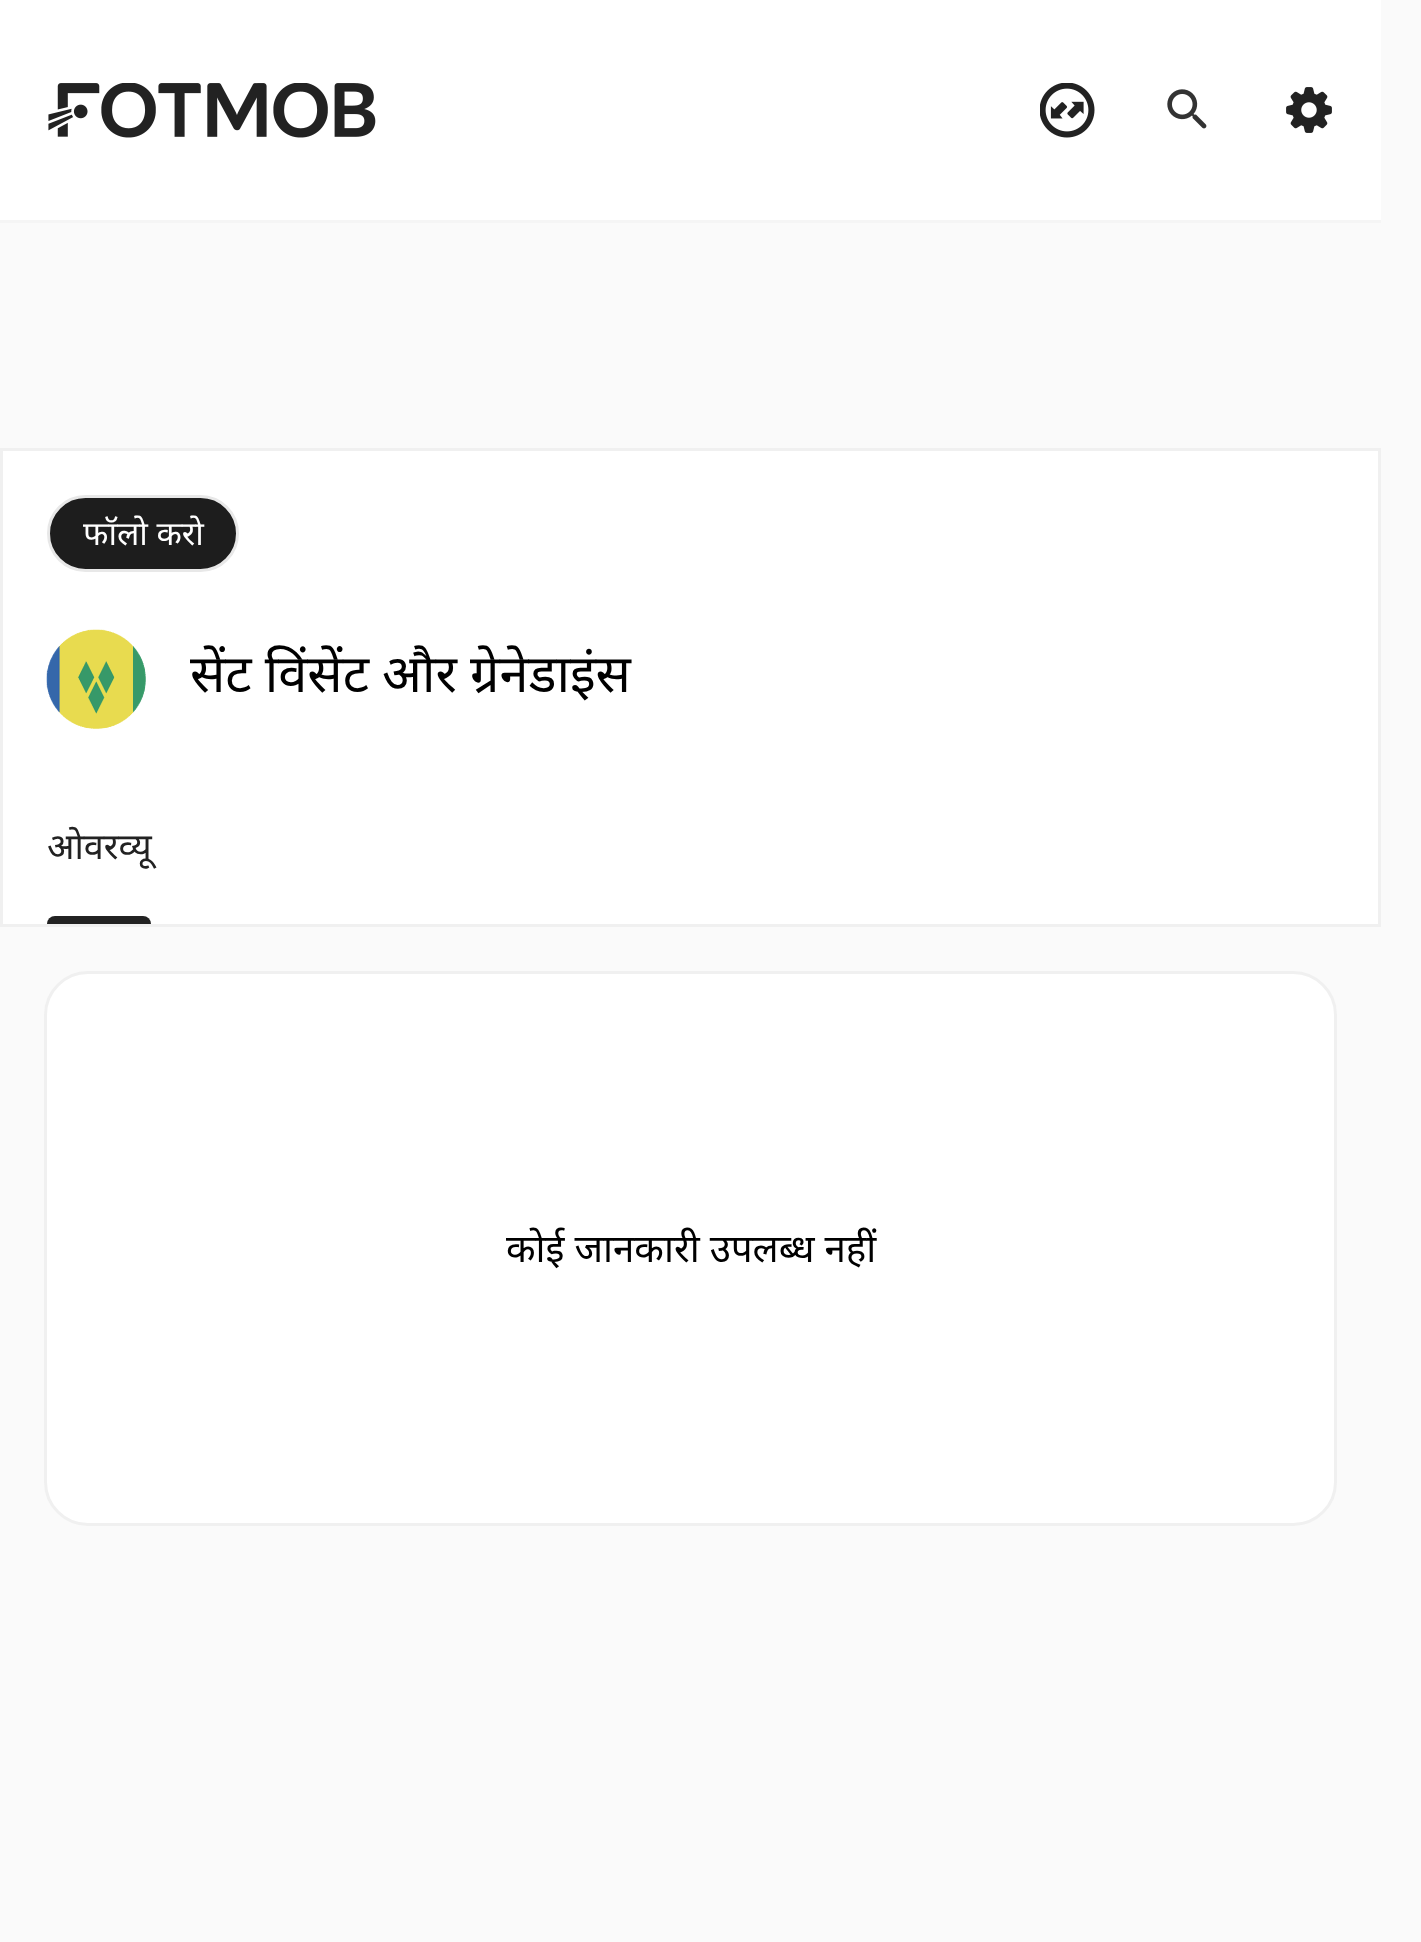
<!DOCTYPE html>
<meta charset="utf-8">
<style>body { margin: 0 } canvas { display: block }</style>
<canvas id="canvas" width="1421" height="1942"></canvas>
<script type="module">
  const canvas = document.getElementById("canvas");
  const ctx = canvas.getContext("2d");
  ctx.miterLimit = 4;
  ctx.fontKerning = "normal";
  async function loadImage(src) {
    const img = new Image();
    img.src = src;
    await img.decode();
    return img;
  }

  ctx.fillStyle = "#fafafa";
  ctx.fillRect(0, 0, 1421, 1942);
  ctx.fillStyle = "#f5f5f5";
  ctx.fillRect(0, 220, 1381, 3);
  ctx.fillStyle = "#ffffff";
  ctx.fillRect(0, 0, 1381, 220);
  ctx.drawImage(await loadImage("img1.png"), 48, 83, 328, 55);
  ctx.drawImage(await loadImage("img2.png"), 1040, 83, 55, 55);
  ctx.drawImage(await loadImage("img3.png"), 1167, 89, 40, 40);
  ctx.drawImage(await loadImage("img4.png"), 1286, 87, 46, 46);
  ctx.beginPath();
  ctx.rect(1.5, 449.5, 1378, 476);
  ctx.fill();
  ctx.strokeStyle = "#f0f0f0";
  ctx.lineWidth = 3;
  ctx.stroke();
  ctx.fillStyle = "#1d1d1d";
  ctx.beginPath();
  ctx.roundRect(48.5, 496.5, 189, 74, 37);
  ctx.fill();
  ctx.strokeStyle = "#e8e8e8";
  ctx.stroke();
  ctx.font = "33px Noto Sans";
  ctx.fillStyle = "#ffffff";
  ctx.fillText("फॉलो करो", 83, 545);
  ctx.drawImage(await loadImage("img5.png"), 46, 629, 100, 100);
  ctx.wordSpacing = "-0.5px";
  ctx.font = "52.25px Noto Sans";
  ctx.fillStyle = "#000000";
  ctx.fillText("सेंट विंसेंट और ग्रेनेडाइंस", 190, 692);
  ctx.wordSpacing = "0px";
  ctx.font = "36px Noto Sans";
  ctx.fillStyle = "#222222";
  ctx.fillText("ओवरव्यू", 47, 859);
  ctx.beginPath();
  ctx.roundRect(47, 916, 104, 8, [8, 8, 0, 0]);
  ctx.fill();
  ctx.fillStyle = "#ffffff";
  ctx.beginPath();
  ctx.roundRect(45.5, 972.5, 1290, 552, 42.5);
  ctx.fill();
  ctx.strokeStyle = "#f0f0f0";
  ctx.stroke();
  ctx.font = "38.5px Noto Sans";
  ctx.fillStyle = "#000000";
  ctx.fillText("कोई जानकारी उपलब्ध नहीं", 506, 1262);
</script>
